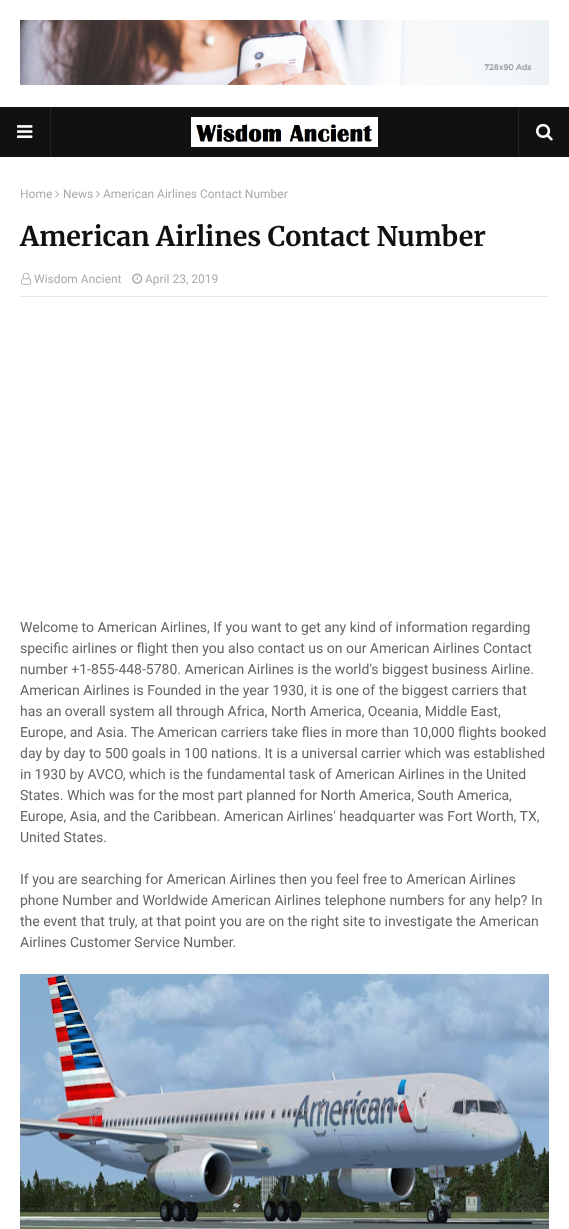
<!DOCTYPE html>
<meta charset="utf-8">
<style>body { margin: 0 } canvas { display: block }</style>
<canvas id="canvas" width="569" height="1229"></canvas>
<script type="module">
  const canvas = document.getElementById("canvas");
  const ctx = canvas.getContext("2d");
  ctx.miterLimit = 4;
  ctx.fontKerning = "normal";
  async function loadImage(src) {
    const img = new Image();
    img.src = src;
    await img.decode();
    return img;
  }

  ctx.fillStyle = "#ffffff";
  ctx.fillRect(0, 0, 569, 1229);
  ctx.drawImage(await loadImage("img1.png"), 20, 20, 529, 65);
  ctx.fillStyle = "#111111";
  ctx.fillRect(0, 107, 569, 50);
  ctx.fillStyle = "#242424";
  ctx.fillRect(50, 107, 1, 50);
  ctx.drawImage(await loadImage("img2.png"), 17, 125, 16, 13);
  ctx.drawImage(await loadImage("img3.png"), 191, 117, 187, 30);
  ctx.fillRect(518, 107, 1, 50);
  ctx.drawImage(await loadImage("img4.png"), 536, 123, 17, 18);
  ctx.font = "12px Roboto";
  ctx.fillStyle = "#aaaaaa";
  ctx.fillText("Home", 20, 198);
  ctx.drawImage(await loadImage("img5.png"), 55, 190, 4, 8);
  ctx.fillText("News", 63, 198);
  ctx.drawImage(await loadImage("img5.png"), 96, 190, 4, 8);
  ctx.fillText("American Airlines Contact Number", 103, 198);
  ctx.font = "bold 27px Merriweather";
  ctx.fillStyle = "#111111";
  ctx.fillText("American Airlines Contact Number", 20, 246);
  ctx.fillStyle = "#eaeaea";
  ctx.fillRect(20, 296, 529, 1);
  ctx.drawImage(await loadImage("img6.png"), 21, 272, 11, 13);
  ctx.font = "12px Roboto";
  ctx.fillStyle = "#aaaaaa";
  ctx.fillText("Wisdom Ancient", 34, 283);
  ctx.drawImage(await loadImage("img7.png"), 132, 273, 11, 11);
  ctx.fillText("April 23, 2019", 145, 283);
  ctx.font = "14px Roboto";
  ctx.fillStyle = "#656565";
  ctx.fillText("Welcome to American Airlines, If you want to get any kind of information regarding", 20, 632);
  ctx.fillText("specific airlines or flight then you also contact us on our American Airlines Contact", 20, 653);
  ctx.fillText("number +1-855-448-5780. American Airlines is the world's biggest business Airline.", 20, 674);
  ctx.fillText("American Airlines is Founded in the year 1930, it is one of the biggest carriers that", 20, 695);
  ctx.fillText("has an overall system all through Africa, North America, Oceania, Middle East,", 20, 716);
  ctx.fillText("Europe, and Asia. The American carriers take flies in more than 10,000 flights booked", 20, 737);
  ctx.fillText("day by day to 500 goals in 100 nations. It is a universal carrier which was established", 20, 758);
  ctx.fillText("in 1930 by AVCO, which is the fundamental task of American Airlines in the United", 20, 779);
  ctx.fillText("States. Which was for the most part planned for North America, South America,", 20, 800);
  ctx.fillText("Europe, Asia, and the Caribbean. American Airlines' headquarter was Fort Worth, TX,", 20, 821);
  ctx.fillText("United States.", 20, 842);
  ctx.fillText("If you are searching for American Airlines then you feel free to American Airlines", 20, 884);
  ctx.fillText("phone Number and Worldwide American Airlines telephone numbers for any help? In", 20, 905);
  ctx.fillText("the event that truly, at that point you are on the right site to investigate the American", 20, 926);
  ctx.fillText("Airlines Customer Service Number.", 20, 947);
  ctx.drawImage(await loadImage("img8.png"), 20, 974, 529, 255);
</script>
